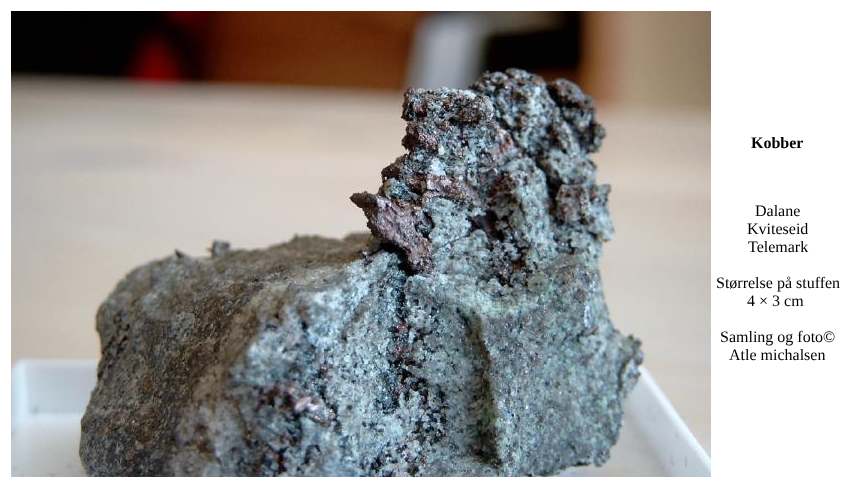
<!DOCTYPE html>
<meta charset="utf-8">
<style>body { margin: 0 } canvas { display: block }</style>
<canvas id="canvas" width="857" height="477"></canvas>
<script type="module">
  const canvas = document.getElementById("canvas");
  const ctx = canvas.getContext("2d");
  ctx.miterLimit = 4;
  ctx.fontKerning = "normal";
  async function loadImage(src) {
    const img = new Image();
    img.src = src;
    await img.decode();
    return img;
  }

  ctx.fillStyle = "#ffffff";
  ctx.fillRect(0, 0, 857, 477);
  ctx.drawImage(await loadImage("img1.png"), 11, 11, 700, 466);
  ctx.font = "bold 16px Liberation Serif";
  ctx.fillStyle = "#000000";
  ctx.fillText("Kobber", 751, 148);
  ctx.font = "16px Liberation Serif";
  ctx.fillText("Dalane", 755, 216);
  ctx.fillText("Kviteseid", 747, 234);
  ctx.fillText("Telemark", 748, 252);
  ctx.fillText("Størrelse på stuffen", 716, 288);
  ctx.fillText("4 × 3 cm", 747, 306);
  ctx.fillText("Samling og foto©", 720, 342);
  ctx.fillText("Atle michalsen", 729, 360);
</script>
